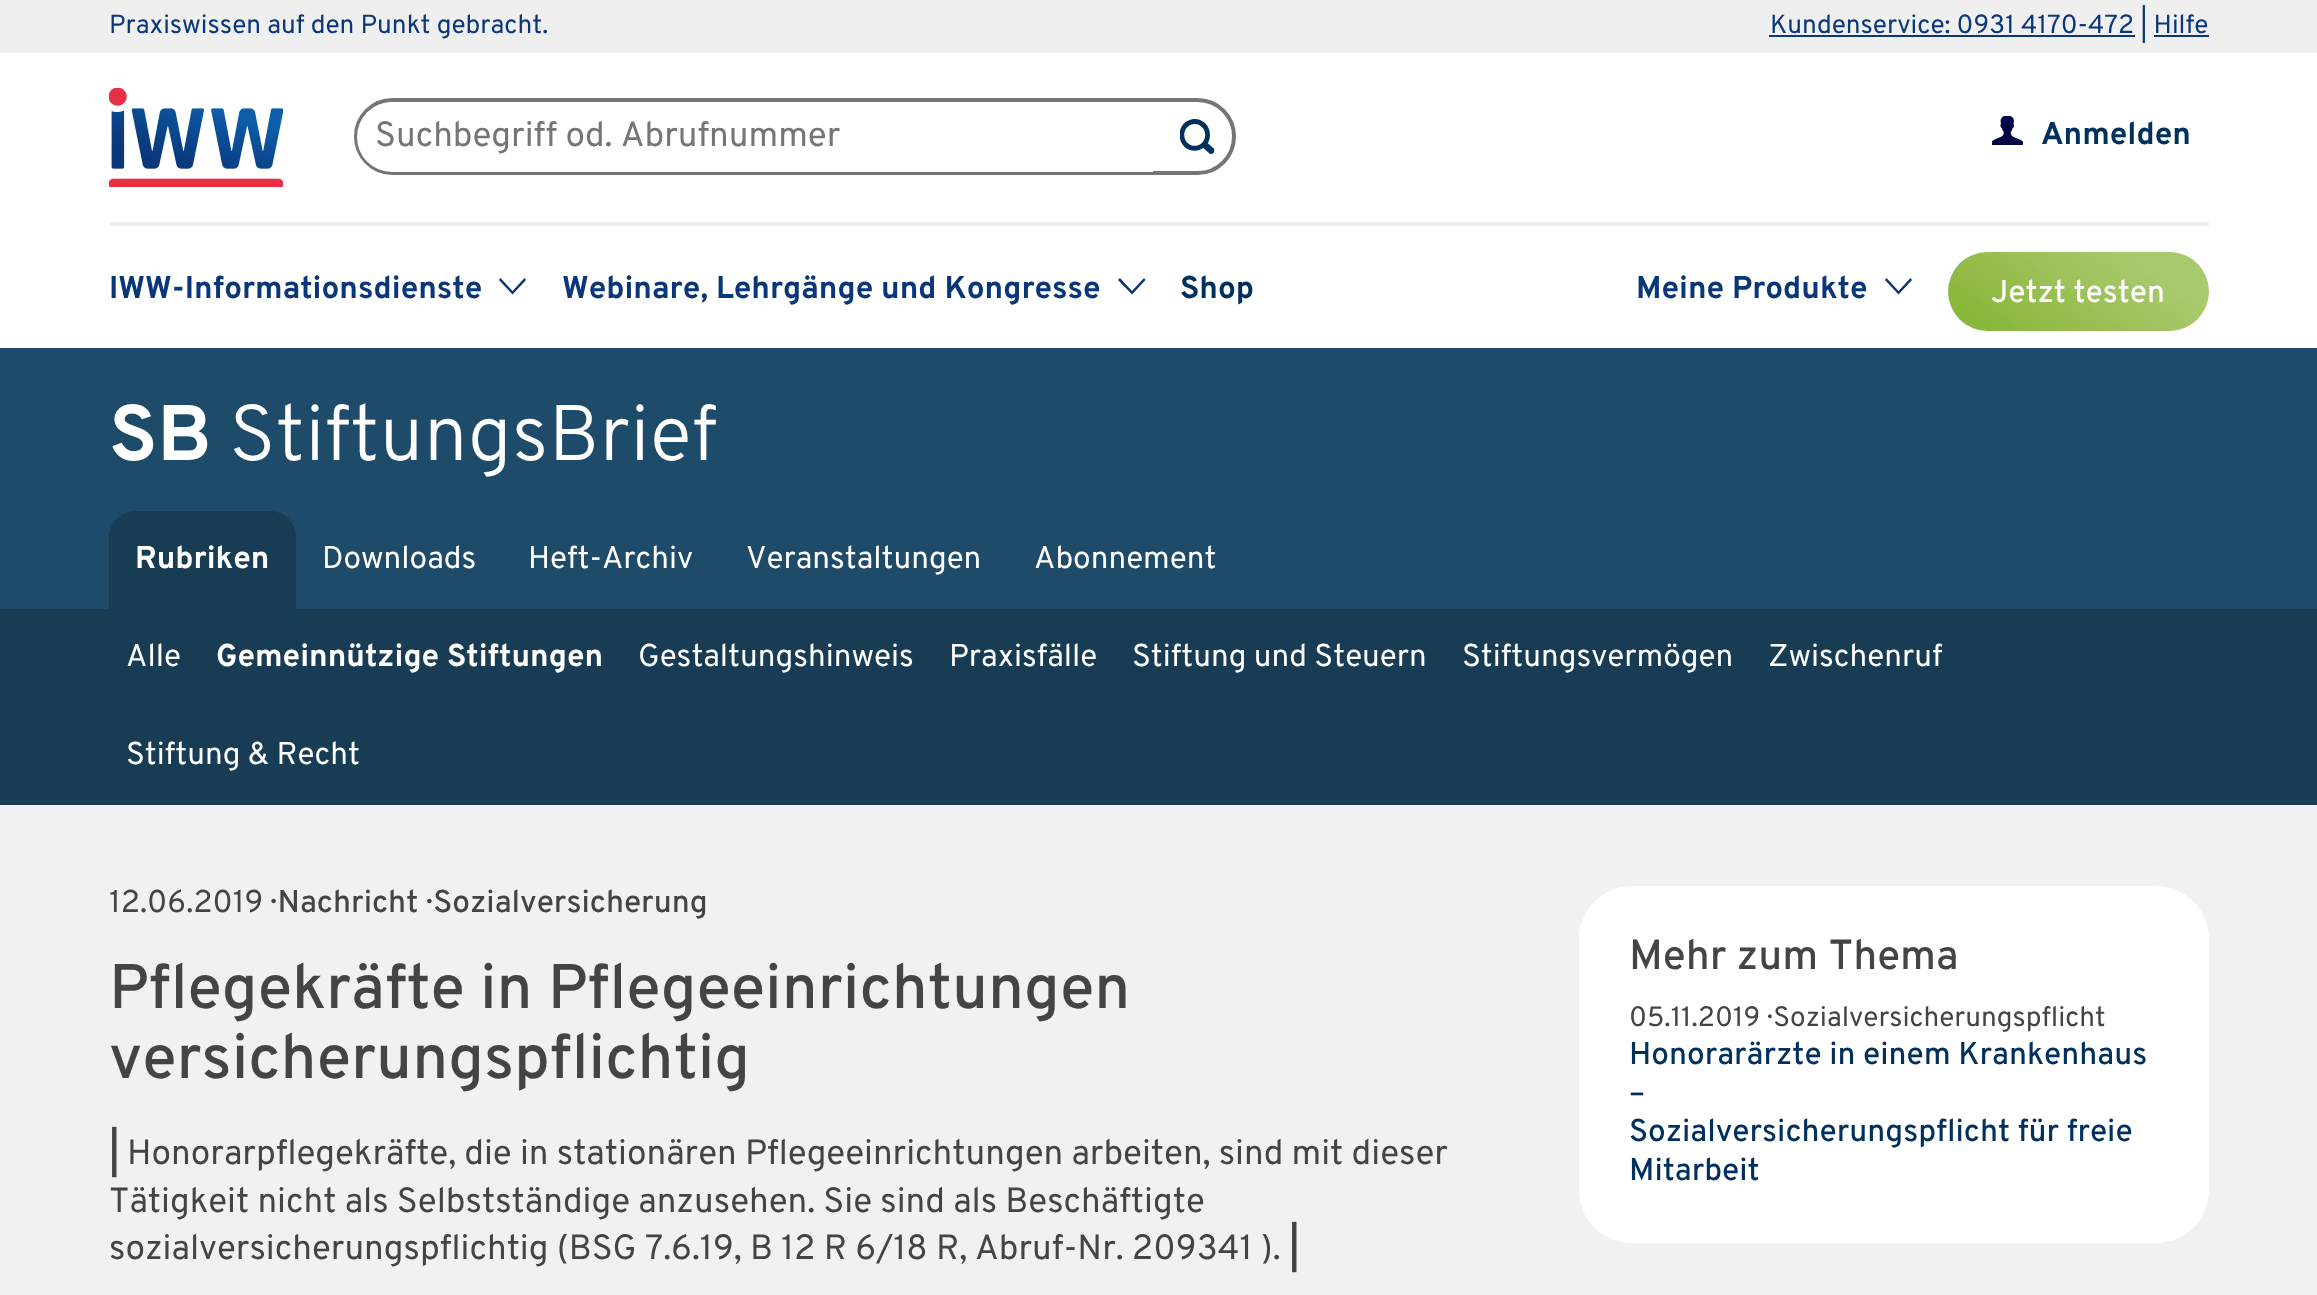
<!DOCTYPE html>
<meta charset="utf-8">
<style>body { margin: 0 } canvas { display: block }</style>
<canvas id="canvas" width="2317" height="1295"></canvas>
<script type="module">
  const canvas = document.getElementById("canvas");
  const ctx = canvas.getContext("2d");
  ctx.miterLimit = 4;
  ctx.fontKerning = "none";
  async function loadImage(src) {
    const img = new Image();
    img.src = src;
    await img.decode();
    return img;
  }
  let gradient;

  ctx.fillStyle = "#ffffff";
  ctx.fillRect(0, 0, 2317, 1295);
  ctx.fillStyle = "#efefef";
  ctx.fillRect(0, 0, 2317, 53);
  ctx.font = "26.25px Overpass";
  ctx.fillStyle = "#0a367a";
  ctx.fillText("Praxiswissen auf den Punkt gebracht.", 109, 33);
  ctx.fillRect(1769, 35, 366, 2);
  ctx.fillText("Kundenservice: 0931 4170-472 | Hilfe", 1770, 33);
  ctx.fillRect(2154, 35, 55, 2);
  ctx.fillStyle = "#efefef";
  ctx.fillRect(109, 222, 2100, 4);
  ctx.drawImage(await loadImage("img1.png"), 109, 88, 174, 99);
  ctx.beginPath();
  ctx.roundRect(356, 100, 878, 73, 36.5);
  ctx.strokeStyle = "#757575";
  ctx.lineWidth = 4;
  ctx.stroke();
  ctx.fillStyle = "#ffffff";
  ctx.beginPath();
  ctx.roundRect(357, 102, 796, 70, [35, 0, 0, 35]);
  ctx.fill();
  ctx.font = "35px Overpass";
  ctx.fillStyle = "#757575";
  ctx.fillText("Suchbegriff od. Abrufnummer", 375, 146);
  ctx.drawImage(await loadImage("img2.png"), 1180, 119, 35, 35);
  ctx.drawImage(await loadImage("img3.png"), 1992, 116, 31, 29);
  ctx.font = "bold 31.5px Overpass";
  ctx.fillStyle = "#00305e";
  ctx.fillText("Anmelden", 2041, 144);
  ctx.fillStyle = "#0a367a";
  ctx.fillText("IWW-Informationsdienste", 109, 298);
  ctx.beginPath();
  ctx.moveTo(524.5, 278);
  ctx.lineTo(526, 280);
  ctx.lineTo(512.5, 294.5);
  ctx.lineTo(499, 280);
  ctx.lineTo(500.5, 278);
  ctx.lineTo(512.5, 291);
  ctx.closePath();
  ctx.fill();
  ctx.fillText("Webinare, Lehrgänge und Kongresse", 562, 298);
  ctx.beginPath();
  ctx.moveTo(1144, 278);
  ctx.lineTo(1145.5, 280);
  ctx.lineTo(1132, 294.5);
  ctx.lineTo(1118, 280);
  ctx.lineTo(1120, 278);
  ctx.lineTo(1132, 291);
  ctx.closePath();
  ctx.fill();
  ctx.fillStyle = "#00305e";
  ctx.fillText("Shop", 1180, 298);
  ctx.fillStyle = "#0a367a";
  ctx.fillText("Meine Produkte", 1636, 298);
  ctx.beginPath();
  ctx.moveTo(1910.5, 278);
  ctx.lineTo(1912, 280);
  ctx.lineTo(1898.5, 294.5);
  ctx.lineTo(1885, 280);
  ctx.lineTo(1886.5, 278);
  ctx.lineTo(1898.5, 291);
  ctx.closePath();
  ctx.fill();
  gradient = ctx.createLinearGradient(2142, 204, 2014, 379);
  gradient.addColorStop(0.24, "#a8c96c");
  gradient.addColorStop(0.87, "#8bb73c");
  ctx.fillStyle = gradient;
  ctx.beginPath();
  ctx.roundRect(1948, 252, 261, 79, 39.5);
  ctx.fill();
  ctx.font = "500 31.5px Overpass";
  ctx.fillStyle = "#ffffff";
  ctx.fillText("Jetzt testen", 1991, 302);
  ctx.fillStyle = "#1d4b69";
  ctx.fillRect(0, 348, 2317, 261);
  ctx.font = "bold 78.75px Overpass";
  ctx.fillStyle = "#ffffff";
  ctx.fillText("SB", 109, 460);
  ctx.font = "300 78.75px Overpass";
  ctx.fillText("StiftungsBrief", 229, 460);
  ctx.fillStyle = "#173c54";
  ctx.beginPath();
  ctx.roundRect(109, 511, 187, 98, [26, 26, 0, 0]);
  ctx.fill();
  ctx.font = "bold 31.5px Overpass";
  ctx.fillStyle = "#ffffff";
  ctx.fillText("Rubriken", 135, 568);
  ctx.font = "31.5px Overpass";
  ctx.fillText("Downloads", 322, 568);
  ctx.fillText("Heft-Archiv", 528, 568);
  ctx.fillText("Veranstaltungen", 746, 568);
  ctx.fillText("Abonnement", 1034, 568);
  ctx.fillStyle = "#173c54";
  ctx.fillRect(0, 609, 2317, 196);
  ctx.fillStyle = "#ffffff";
  ctx.fillText("Alle", 126, 666);
  ctx.font = "bold 31.5px Overpass";
  ctx.fillText("Gemeinnützige Stiftungen", 216, 666);
  ctx.font = "31.5px Overpass";
  ctx.fillText("Gestaltungshinweis", 638, 666);
  ctx.fillText("Praxisfälle", 949, 666);
  ctx.fillText("Stiftung und Steuern", 1132, 666);
  ctx.fillText("Stiftungsvermögen", 1462, 666);
  ctx.fillText("Zwischenruf", 1768, 666);
  ctx.fillText("Stiftung & Recht", 126, 764);
  ctx.fillStyle = "#f1f1f1";
  ctx.fillRect(0, 805, 2317, 490);
  ctx.fillStyle = "#444444";
  ctx.fillText("12.06.2019", 109, 912);
  ctx.font = "500 31.5px Overpass";
  ctx.fillText("· Nachricht · Sozialversicherung", 270, 912);
  ctx.font = "500 63px Overpass";
  ctx.fillText("Pflegekräfte in Pflegeeinrichtungen", 109, 1008);
  ctx.fillText("versicherungspflichtig", 109, 1078);
  ctx.font = "bold 35px Overpass";
  ctx.fillText("|", 109, 1164);
  ctx.font = "35px Overpass";
  ctx.fillText("Honorarpflegekräfte, die in stationären Pflegeeinrichtungen arbeiten, sind mit dieser", 127, 1164);
  ctx.fillText("Tätigkeit nicht als Selbstständige anzusehen. Sie sind als Beschäftigte", 109, 1212);
  ctx.fillText("sozialversicherungspflichtig (BSG 7.6.19, B 12 R 6/18 R,", 109, 1259);
  ctx.fillText("Abruf-Nr. 209341 ).", 975, 1259);
  ctx.font = "bold 35px Overpass";
  ctx.fillText("|", 1289, 1259);
  ctx.fillStyle = "#ffffff";
  ctx.beginPath();
  ctx.roundRect(1579, 886, 630, 357, 53);
  ctx.fill();
  ctx.font = "500 42px Overpass";
  ctx.fillStyle = "#444444";
  ctx.fillText("Mehr zum Thema", 1629, 969);
  ctx.font = "28px Overpass";
  ctx.fillText("05.11.2019 · Sozialversicherungspflicht", 1629, 1026);
  ctx.font = "500 31.5px Overpass";
  ctx.fillStyle = "#00305e";
  ctx.fillText("Honorarärzte in einem Krankenhaus", 1629, 1064);
  ctx.fillText("–", 1629, 1103);
  ctx.fillText("Sozialversicherungspflicht für freie", 1629, 1141);
  ctx.fillText("Mitarbeit", 1629, 1180);
</script>
